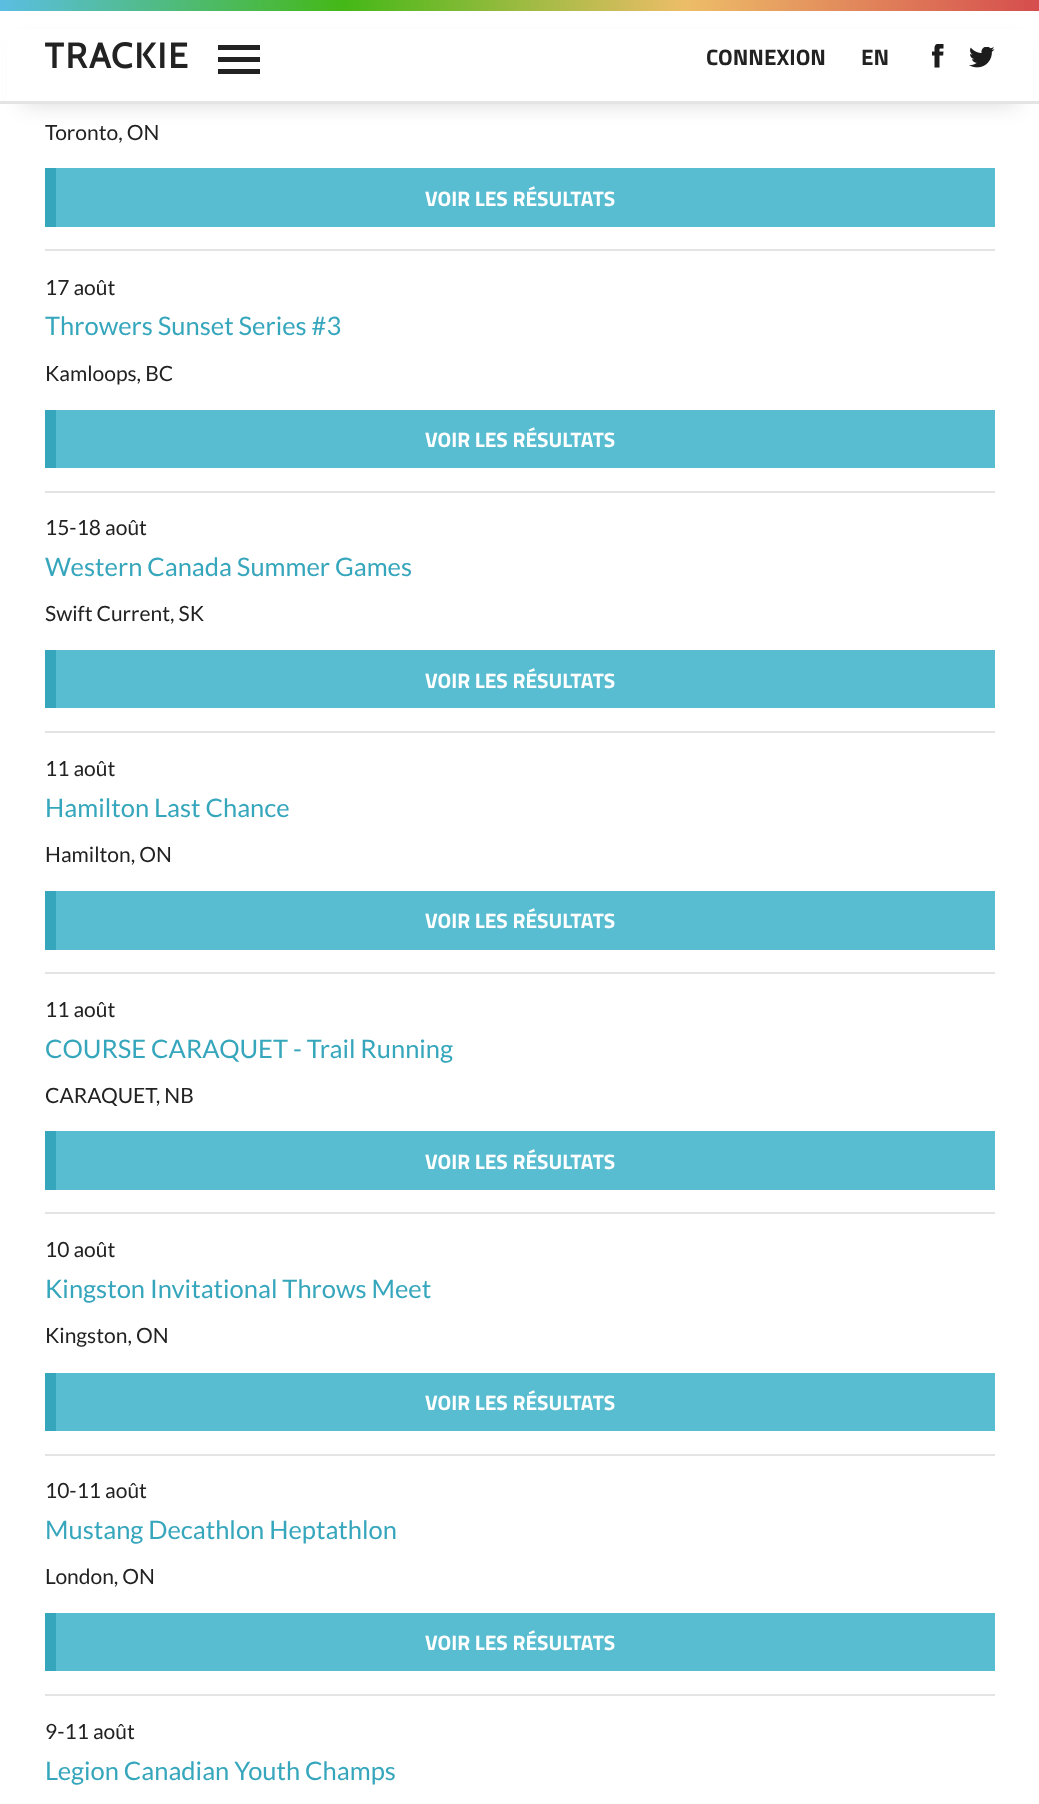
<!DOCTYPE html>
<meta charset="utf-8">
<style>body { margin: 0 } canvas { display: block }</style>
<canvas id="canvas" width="1039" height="1804"></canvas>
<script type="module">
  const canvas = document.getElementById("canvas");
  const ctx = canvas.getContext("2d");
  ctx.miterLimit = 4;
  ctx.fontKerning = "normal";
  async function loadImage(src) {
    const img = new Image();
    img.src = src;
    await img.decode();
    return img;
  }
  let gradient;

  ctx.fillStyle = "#ffffff";
  ctx.fillRect(0, 0, 1039, 1804);
  ctx.fillStyle = "rgba(0, 0, 0, 0.15)";
  ctx.filter = "blur(11px)";
  ctx.beginPath();
  ctx.rect(23, 45, 994, 59);
  ctx.fill();
  ctx.filter = "none";
  ctx.fillStyle = "#ffffff";
  ctx.fillRect(7, 29, 1026, 72);
  ctx.fillStyle = "#e4e4e4";
  ctx.fillRect(0, 101, 1039, 3);
  gradient = ctx.createLinearGradient(0, 5.3, 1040, 5.2);
  gradient.addColorStop(0, "#5bbee2");
  gradient.addColorStop(0.33, "#44b817");
  gradient.addColorStop(0.66, "#edbd68");
  gradient.addColorStop(1, "#d54d4d");
  ctx.fillStyle = gradient;
  ctx.fillRect(0, 0, 1039, 11);
  ctx.drawImage(await loadImage("img1.png"), 45, 42, 143, 27);
  ctx.fillStyle = "#222222";
  ctx.fillRect(218, 45, 42, 5);
  ctx.fillRect(218, 57, 42, 5);
  ctx.fillRect(218, 69, 42, 5);
  ctx.font = "bold 22.5px Titillium Web";
  ctx.fillText("CONNEXION", 706, 65);
  ctx.fillText("EN", 861, 65);
  ctx.drawImage(await loadImage("img2.png"), 932, 44, 12, 24);
  ctx.drawImage(await loadImage("img3.png"), 969, 47, 26, 21);
  ctx.font = "21px Lato";
  ctx.fillText("Toronto, ON", 45, 140);
  ctx.fillStyle = "#e4e4e4";
  ctx.fillRect(45, 249, 950, 2);
  ctx.fillStyle = "#58bdd1";
  ctx.fillRect(56, 168, 939, 59);
  ctx.fillStyle = "#36a6bc";
  ctx.fillRect(45, 168, 11, 59);
  ctx.font = "bold 21px Titillium Web";
  ctx.fillStyle = "#ffffff";
  ctx.fillText("VOIR LES RÉSULTATS", 425, 206);
  ctx.font = "21px Lato";
  ctx.fillStyle = "#222222";
  ctx.fillText("17 août", 45, 295);
  ctx.font = "25.5px Lato";
  ctx.fillStyle = "#36a6bc";
  ctx.fillText("Throwers Sunset Series #3", 45, 335);
  ctx.font = "21px Lato";
  ctx.fillStyle = "#222222";
  ctx.fillText("Kamloops, BC", 45, 381);
  ctx.fillStyle = "#e4e4e4";
  ctx.fillRect(45, 491, 950, 2);
  ctx.fillStyle = "#58bdd1";
  ctx.fillRect(56, 410, 939, 58);
  ctx.fillStyle = "#36a6bc";
  ctx.fillRect(45, 410, 11, 58);
  ctx.font = "bold 21px Titillium Web";
  ctx.fillStyle = "#ffffff";
  ctx.fillText("VOIR LES RÉSULTATS", 425, 447);
  ctx.font = "21px Lato";
  ctx.fillStyle = "#222222";
  ctx.fillText("15-18 août", 45, 535);
  ctx.font = "25.5px Lato";
  ctx.fillStyle = "#36a6bc";
  ctx.fillText("Western Canada Summer Games", 45, 576);
  ctx.font = "21px Lato";
  ctx.fillStyle = "#222222";
  ctx.fillText("Swift Current, SK", 45, 621);
  ctx.fillStyle = "#e4e4e4";
  ctx.fillRect(45, 731, 950, 2);
  ctx.fillStyle = "#58bdd1";
  ctx.fillRect(56, 650, 939, 58);
  ctx.fillStyle = "#36a6bc";
  ctx.fillRect(45, 650, 11, 58);
  ctx.font = "bold 21px Titillium Web";
  ctx.fillStyle = "#ffffff";
  ctx.fillText("VOIR LES RÉSULTATS", 425, 688);
  ctx.font = "21px Lato";
  ctx.fillStyle = "#222222";
  ctx.fillText("11 août", 45, 776);
  ctx.font = "25.5px Lato";
  ctx.fillStyle = "#36a6bc";
  ctx.fillText("Hamilton Last Chance", 45, 817);
  ctx.font = "21px Lato";
  ctx.fillStyle = "#222222";
  ctx.fillText("Hamilton, ON", 45, 862);
  ctx.fillStyle = "#e4e4e4";
  ctx.fillRect(45, 972, 950, 2);
  ctx.fillStyle = "#58bdd1";
  ctx.fillRect(56, 891, 939, 59);
  ctx.fillStyle = "#36a6bc";
  ctx.fillRect(45, 891, 11, 59);
  ctx.font = "bold 21px Titillium Web";
  ctx.fillStyle = "#ffffff";
  ctx.fillText("VOIR LES RÉSULTATS", 425, 928);
  ctx.font = "21px Lato";
  ctx.fillStyle = "#222222";
  ctx.fillText("11 août", 45, 1017);
  ctx.font = "25.5px Lato";
  ctx.fillStyle = "#36a6bc";
  ctx.fillText("COURSE CARAQUET - Trail Running", 45, 1058);
  ctx.font = "21px Lato";
  ctx.fillStyle = "#222222";
  ctx.fillText("CARAQUET, NB", 45, 1103);
  ctx.fillStyle = "#e4e4e4";
  ctx.fillRect(45, 1212, 950, 2);
  ctx.fillStyle = "#58bdd1";
  ctx.fillRect(56, 1131, 939, 59);
  ctx.fillStyle = "#36a6bc";
  ctx.fillRect(45, 1131, 11, 59);
  ctx.font = "bold 21px Titillium Web";
  ctx.fillStyle = "#ffffff";
  ctx.fillText("VOIR LES RÉSULTATS", 425, 1169);
  ctx.font = "21px Lato";
  ctx.fillStyle = "#222222";
  ctx.fillText("10 août", 45, 1257);
  ctx.font = "25.5px Lato";
  ctx.fillStyle = "#36a6bc";
  ctx.fillText("Kingston Invitational Throws Meet", 45, 1298);
  ctx.font = "21px Lato";
  ctx.fillStyle = "#222222";
  ctx.fillText("Kingston, ON", 45, 1343);
  ctx.fillStyle = "#e4e4e4";
  ctx.fillRect(45, 1454, 950, 2);
  ctx.fillStyle = "#58bdd1";
  ctx.fillRect(56, 1373, 939, 58);
  ctx.fillStyle = "#36a6bc";
  ctx.fillRect(45, 1373, 11, 58);
  ctx.font = "bold 21px Titillium Web";
  ctx.fillStyle = "#ffffff";
  ctx.fillText("VOIR LES RÉSULTATS", 425, 1410);
  ctx.font = "21px Lato";
  ctx.fillStyle = "#222222";
  ctx.fillText("10-11 août", 45, 1498);
  ctx.font = "25.5px Lato";
  ctx.fillStyle = "#36a6bc";
  ctx.fillText("Mustang Decathlon Heptathlon", 45, 1539);
  ctx.font = "21px Lato";
  ctx.fillStyle = "#222222";
  ctx.fillText("London, ON", 45, 1584);
  ctx.fillStyle = "#e4e4e4";
  ctx.fillRect(45, 1694, 950, 2);
  ctx.fillStyle = "#58bdd1";
  ctx.fillRect(56, 1613, 939, 58);
  ctx.fillStyle = "#36a6bc";
  ctx.fillRect(45, 1613, 11, 58);
  ctx.font = "bold 21px Titillium Web";
  ctx.fillStyle = "#ffffff";
  ctx.fillText("VOIR LES RÉSULTATS", 425, 1650);
  ctx.font = "21px Lato";
  ctx.fillStyle = "#222222";
  ctx.fillText("9-11 août", 45, 1739);
  ctx.font = "25.5px Lato";
  ctx.fillStyle = "#36a6bc";
  ctx.fillText("Legion Canadian Youth Champs", 45, 1780);
</script>
